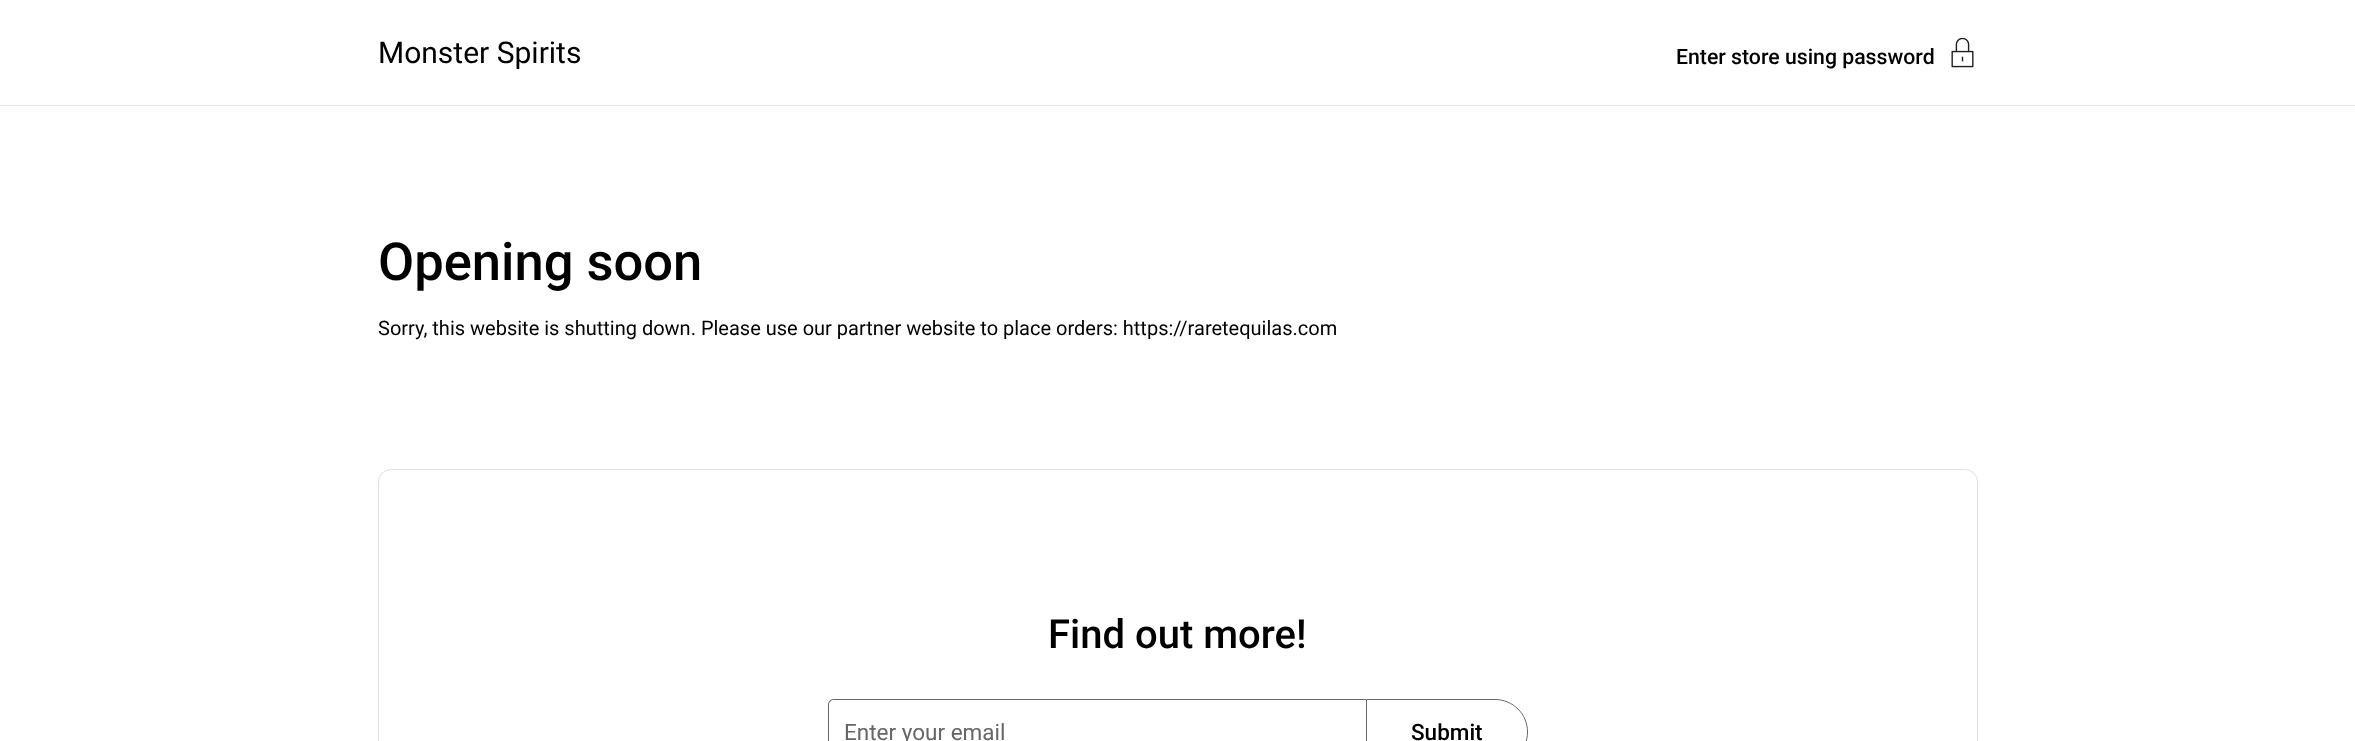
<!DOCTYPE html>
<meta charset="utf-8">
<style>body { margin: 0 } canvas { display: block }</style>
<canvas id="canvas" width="2355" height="741"></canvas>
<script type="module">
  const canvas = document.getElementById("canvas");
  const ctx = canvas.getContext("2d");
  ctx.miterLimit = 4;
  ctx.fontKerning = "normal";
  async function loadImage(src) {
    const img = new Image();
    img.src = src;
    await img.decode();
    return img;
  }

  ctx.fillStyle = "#ffffff";
  ctx.fillRect(0, 0, 2355, 741);
  ctx.fillStyle = "#e6e6e6";
  ctx.fillRect(0, 105, 2355, 1);
  ctx.font = "30px Roboto";
  ctx.fillStyle = "#000000";
  ctx.fillText("Monster Spirits", 378, 63);
  ctx.font = "500 21.25px Roboto";
  ctx.fillText("Enter store using password", 1676, 64);
  ctx.drawImage(await loadImage("img1.png"), 1951, 38, 23, 30);
  ctx.font = "500 52.5px Roboto";
  ctx.fillText("Opening soon", 378, 280);
  ctx.font = "20px Roboto";
  ctx.fillText("Sorry, this website is shutting down. Please use our partner website to place orders: https://raretequilas.com", 378, 335);
  ctx.beginPath();
  ctx.roundRect(378.5, 469.5, 1599, 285, 12.5);
  ctx.strokeStyle = "#e1e1e1";
  ctx.stroke();
  ctx.font = "500 40px Roboto";
  ctx.fillText("Find out more!", 1048, 648);
  ctx.fillStyle = "#666666";
  ctx.beginPath();
  ctx.moveTo(834, 699);
  ctx.lineTo(1366, 699);
  ctx.lineTo(1366, 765);
  ctx.lineTo(834, 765);
  ctx.bezierCurveTo(830, 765, 828, 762, 828, 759);
  ctx.lineTo(828, 705);
  ctx.bezierCurveTo(828, 702, 830, 699, 834, 699);
  ctx.closePath();
  ctx.moveTo(834, 700);
  ctx.lineTo(1366, 700);
  ctx.lineTo(1366, 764);
  ctx.lineTo(834, 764);
  ctx.bezierCurveTo(831, 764, 829, 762, 829, 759);
  ctx.lineTo(829, 705);
  ctx.bezierCurveTo(829, 702, 831, 700, 834, 700);
  ctx.closePath();
  ctx.fill("evenodd");
  ctx.font = "22.5px Roboto";
  ctx.fillText("Enter your email", 844, 740);
  ctx.beginPath();
  ctx.moveTo(1366.5, 699.5);
  ctx.lineTo(1495, 699.5);
  ctx.bezierCurveTo(1513, 699.5, 1527.5, 714, 1527.5, 732);
  ctx.bezierCurveTo(1527.5, 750, 1513, 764.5, 1495, 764.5);
  ctx.lineTo(1366.5, 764.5);
  ctx.closePath();
  ctx.strokeStyle = "#666666";
  ctx.stroke();
  ctx.font = "500 22.5px Roboto";
  ctx.fillStyle = "#000000";
  ctx.fillText("Submit", 1411, 740);
</script>
